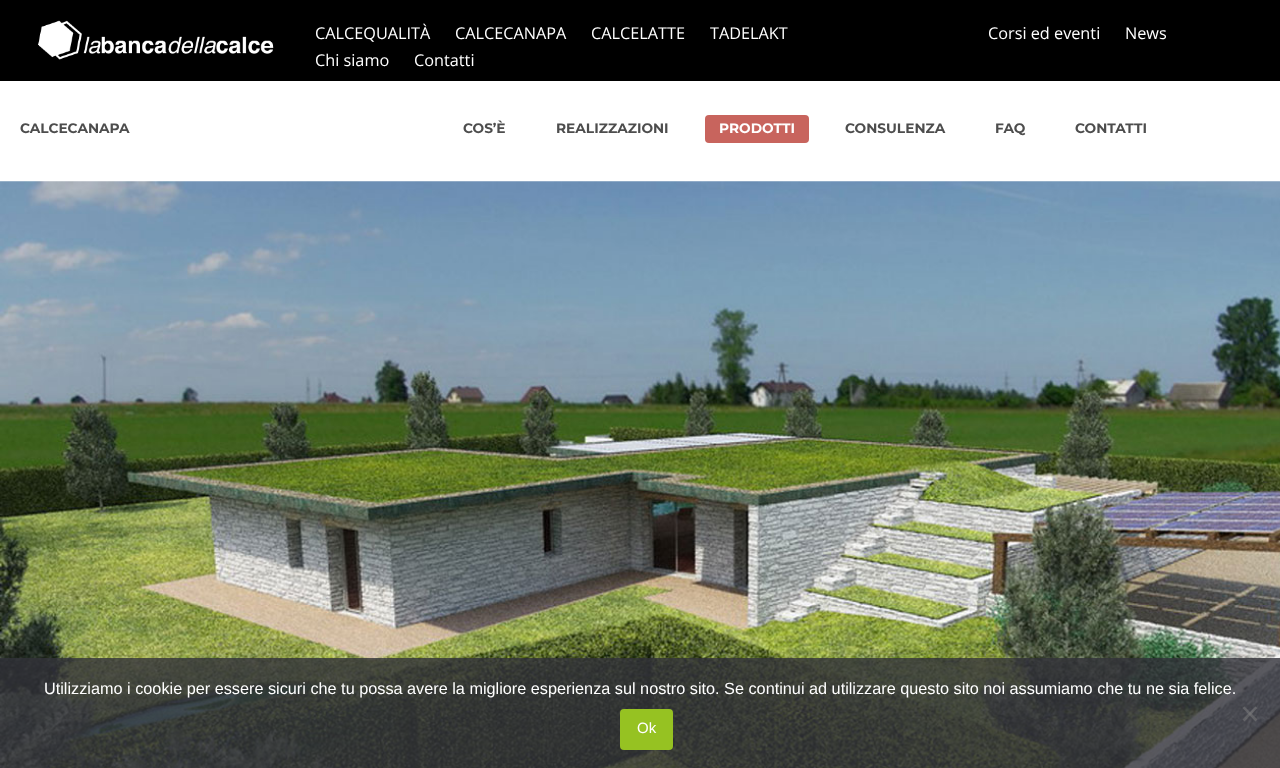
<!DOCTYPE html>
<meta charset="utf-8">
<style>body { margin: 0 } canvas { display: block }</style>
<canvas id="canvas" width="1280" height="768"></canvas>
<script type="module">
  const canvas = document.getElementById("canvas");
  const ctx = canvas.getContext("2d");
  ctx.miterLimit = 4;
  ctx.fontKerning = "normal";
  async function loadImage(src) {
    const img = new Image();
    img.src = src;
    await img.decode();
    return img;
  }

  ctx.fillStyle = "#ffffff";
  ctx.fillRect(0, 0, 1280, 768);
  ctx.fillStyle = "#000000";
  ctx.fillRect(0, 0, 1280, 81);
  ctx.drawImage(await loadImage("img1.png"), 38, 20, 236, 40);
  ctx.font = "16.25px Open Sans";
  ctx.fillStyle = "#ffffff";
  ctx.fillText("CALCEQUALITÀ", 315, 39);
  ctx.fillText("CALCECANAPA", 455, 39);
  ctx.fillText("CALCELATTE", 591, 39);
  ctx.fillText("TADELAKT", 710, 39);
  ctx.fillText("Corsi ed eventi", 988, 39);
  ctx.fillText("News", 1125, 39);
  ctx.fillText("Chi siamo", 315, 66);
  ctx.fillText("Contatti", 414, 66);
  ctx.font = "bold 13.75px Montserrat";
  ctx.fillStyle = "#4d4d4d";
  ctx.fillText("CALCECANAPA", 20, 133);
  ctx.fillText("COS’È", 463, 133);
  ctx.fillText("REALIZZAZIONI", 556, 133);
  ctx.fillStyle = "#c8645d";
  ctx.beginPath();
  ctx.roundRect(705, 115, 104, 28, 4);
  ctx.fill();
  ctx.fillStyle = "#ffffff";
  ctx.fillText("PRODOTTI", 719, 133);
  ctx.fillStyle = "#4d4d4d";
  ctx.fillText("CONSULENZA", 845, 133);
  ctx.fillText("FAQ", 995, 133);
  ctx.fillText("CONTATTI", 1075, 133);
  ctx.drawImage(await loadImage("img2.png"), 0, 181, 1280, 587);
  ctx.fillStyle = "rgba(50, 50, 58, 0.8)";
  ctx.fillRect(0, 658, 1280, 110);
  ctx.font = "16.25px Liberation Sans";
  ctx.fillStyle = "#ffffff";
  ctx.fillText("Utilizziamo i cookie per essere sicuri che tu possa avere la migliore esperienza sul nostro sito. Se continui ad utilizzare questo sito noi assumiamo che tu ne sia felice.", 44, 694);
  ctx.fillStyle = "rgba(128, 128, 128, 0.5)";
  ctx.beginPath();
  ctx.moveTo(1255.5, 706.5);
  ctx.lineTo(1257.5, 708);
  ctx.lineTo(1244.5, 721.5);
  ctx.lineTo(1242.5, 719.5);
  ctx.closePath();
  ctx.fill();
  ctx.beginPath();
  ctx.moveTo(1242.5, 708);
  ctx.lineTo(1244.5, 706.5);
  ctx.lineTo(1257.5, 719.5);
  ctx.lineTo(1255.5, 721.5);
  ctx.closePath();
  ctx.fill();
  ctx.fillStyle = "#96c222";
  ctx.beginPath();
  ctx.roundRect(620, 709, 53, 41, 4);
  ctx.fill();
  ctx.font = "15px Liberation Sans";
  ctx.fillStyle = "#ffffff";
  ctx.fillText("Ok", 637, 733);
</script>
